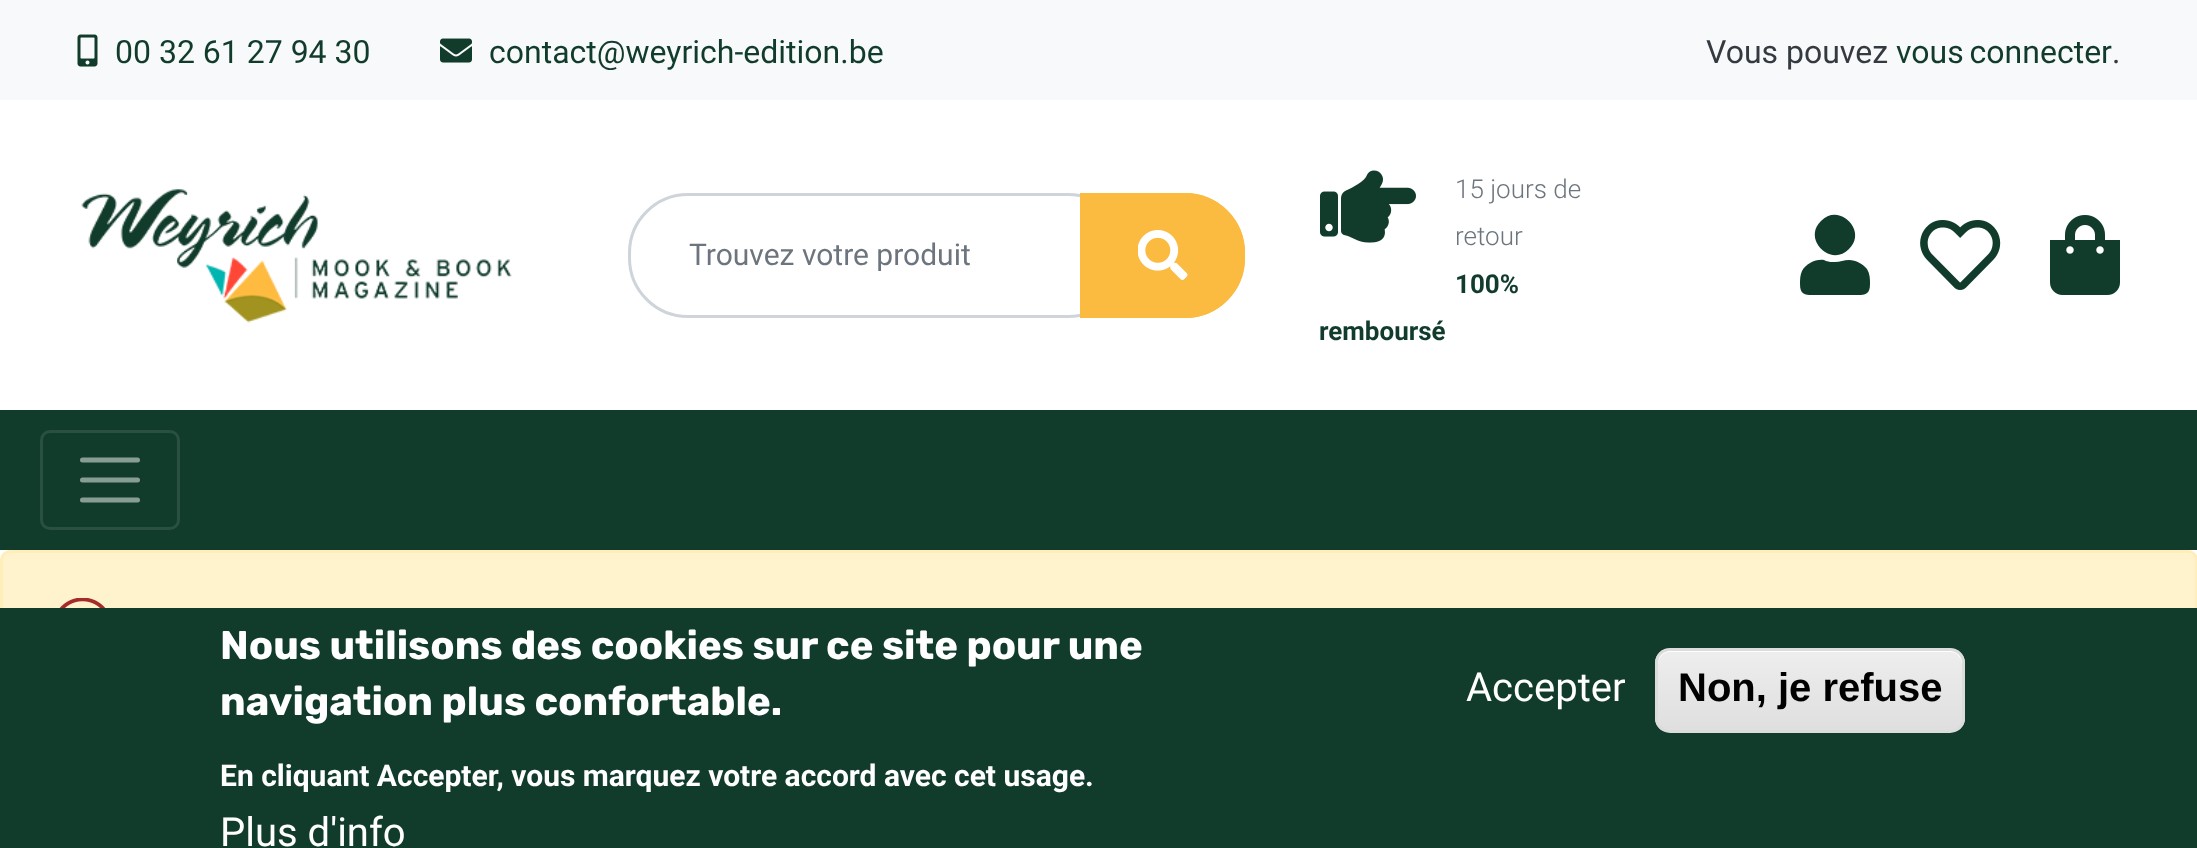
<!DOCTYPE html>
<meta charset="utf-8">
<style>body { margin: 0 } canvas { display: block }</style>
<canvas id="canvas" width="2197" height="848"></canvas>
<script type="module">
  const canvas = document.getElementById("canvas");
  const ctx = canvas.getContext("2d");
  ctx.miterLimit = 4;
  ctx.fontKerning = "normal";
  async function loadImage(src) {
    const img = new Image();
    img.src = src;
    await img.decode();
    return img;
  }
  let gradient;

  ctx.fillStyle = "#ffffff";
  ctx.fillRect(0, 0, 2197, 848);
  ctx.fillStyle = "#f8f9fa";
  ctx.fillRect(0, 0, 2197, 100);
  ctx.drawImage(await loadImage("img1.png"), 77, 34, 21, 33);
  ctx.font = "32px Roboto";
  ctx.fillStyle = "#113c2b";
  ctx.fillText("00 32 61 27 94 30", 115, 63);
  ctx.drawImage(await loadImage("img2.png"), 440, 38, 32, 25);
  ctx.fillText("contact@weyrich-edition.be", 489, 63);
  ctx.fillStyle = "#343a40";
  ctx.fillText("Vous pouvez", 1706, 63);
  ctx.wordSpacing = "-2px";
  ctx.fillStyle = "#113c2b";
  ctx.fillText("vous connecter", 1896, 63);
  ctx.wordSpacing = "0px";
  ctx.fillStyle = "#343a40";
  ctx.fillText(".", 2112, 63);
  ctx.drawImage(await loadImage("img3.png"), 81, 189, 431, 134);
  ctx.beginPath();
  ctx.roundRect(629.5, 194.5, 497, 122, 58.5);
  ctx.strokeStyle = "#ced4da";
  ctx.lineWidth = 3;
  ctx.stroke();
  ctx.font = "30px Roboto";
  ctx.fillStyle = "#6c757d";
  ctx.fillText("Trouvez votre produit", 689, 265);
  ctx.fillStyle = "#fbba40";
  ctx.beginPath();
  ctx.roundRect(1080, 193, 165, 125, [0, 60, 60, 0]);
  ctx.fill();
  ctx.drawImage(await loadImage("img4.png"), 1138, 230, 50, 50);
  ctx.beginPath();
  ctx.roundRect(1081.5, 194.5, 162, 122, [0, 58.5, 58.5, 0]);
  ctx.strokeStyle = "#fbba40";
  ctx.stroke();
  ctx.drawImage(await loadImage("img5.png"), 1320, 170, 96, 73);
  ctx.font = "300 26px Roboto";
  ctx.fillStyle = "#6c757d";
  ctx.fillText("15 jours de", 1455, 198);
  ctx.fillText("retour", 1455, 245);
  ctx.font = "bold 26px Roboto";
  ctx.fillStyle = "#113c2b";
  ctx.fillText("100%", 1455, 293);
  ctx.fillText("remboursé", 1319, 340);
  ctx.beginPath();
  ctx.moveTo(1849, 249);
  ctx.bezierCurveTo(1831, 268, 1802, 239, 1821, 221);
  ctx.bezierCurveTo(1839, 202, 1868, 231, 1849, 249);
  ctx.closePath();
  ctx.moveTo(1849, 260);
  ctx.bezierCurveTo(1856, 260, 1863, 264, 1867, 269);
  ctx.bezierCurveTo(1870, 274, 1870, 279, 1870, 284);
  ctx.bezierCurveTo(1870, 296, 1864, 295, 1853, 295);
  ctx.lineTo(1817, 295);
  ctx.bezierCurveTo(1806, 295, 1800, 296, 1800, 284);
  ctx.bezierCurveTo(1800, 280, 1800, 275, 1802, 271);
  ctx.bezierCurveTo(1806, 264, 1815, 259, 1824, 260);
  ctx.lineTo(1826, 261);
  ctx.bezierCurveTo(1829, 262, 1832, 262, 1835, 262);
  ctx.bezierCurveTo(1840, 262, 1844, 260, 1849, 260);
  ctx.closePath();
  ctx.fill();
  ctx.drawImage(await loadImage("img6.png"), 1920, 220, 81, 70);
  ctx.drawImage(await loadImage("img7.png"), 2050, 215, 70, 80);
  ctx.fillRect(0, 410, 2197, 140);
  ctx.beginPath();
  ctx.roundRect(41.5, 431.5, 137, 97, 8.5);
  ctx.strokeStyle = "#295040";
  ctx.stroke();
  ctx.beginPath();
  ctx.moveTo(82.5, 460);
  ctx.lineTo(137.5, 460);
  ctx.moveTo(82.5, 480);
  ctx.lineTo(137.5, 480);
  ctx.moveTo(82.5, 500);
  ctx.lineTo(137.5, 500);
  ctx.strokeStyle = "#889e95";
  ctx.lineWidth = 5;
  ctx.lineCap = "round";
  ctx.stroke();
  ctx.fillStyle = "#fff3cd";
  ctx.beginPath();
  ctx.roundRect(1.5, 551.5, 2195, 210, 8.5);
  ctx.fill();
  ctx.strokeStyle = "#ffeeba";
  ctx.lineWidth = 3;
  ctx.stroke();
  ctx.drawImage(await loadImage("img8.png"), 59, 598, 47, 10);
  ctx.fillStyle = "#113c2b";
  ctx.fillRect(0, 608, 2197, 240);
  ctx.font = "bold 40px Rubik";
  ctx.fillStyle = "#ffffff";
  ctx.fillText("Nous utilisons des cookies sur ce site pour une", 220, 659);
  ctx.fillText("navigation plus confortable.", 220, 715);
  ctx.font = "bold 30px Roboto";
  ctx.fillText("En cliquant Accepter, vous marquez votre accord avec cet usage.", 220, 786);
  ctx.font = "40px Roboto";
  ctx.fillText("Plus d'info", 220, 846);
  ctx.fillText("Accepter", 1466, 701);
  ctx.save();
  ctx.beginPath();
  ctx.roundRect(1655, 648, 310, 85, 15);
  ctx.clip();
  gradient = ctx.createLinearGradient(1810, 650, 1810, 730);
  gradient.addColorStop(0.05, "#ededed");
  gradient.addColorStop(1, "#dfdfdf");
  ctx.fillStyle = gradient;
  ctx.fillRect(1655, 650, 310, 80);
  ctx.restore();
  ctx.beginPath();
  ctx.moveTo(1670, 652);
  ctx.lineTo(1950, 652);
  ctx.bezierCurveTo(1957, 652, 1962, 658, 1962, 665);
  ctx.lineTo(1962, 723);
  ctx.bezierCurveTo(1963, 721, 1963, 719, 1963, 717);
  ctx.lineTo(1963, 663);
  ctx.bezierCurveTo(1963, 656, 1957, 650, 1950, 650);
  ctx.lineTo(1671, 650);
  ctx.bezierCurveTo(1664, 650, 1658, 656, 1658, 663);
  ctx.lineTo(1658, 665);
  ctx.bezierCurveTo(1658, 658, 1663, 652, 1670, 652);
  ctx.closePath();
  ctx.fill();
  ctx.beginPath();
  ctx.roundRect(1656.5, 649.5, 307, 82, 13.5);
  ctx.strokeStyle = "#dcdcdc";
  ctx.stroke();
  ctx.font = "bold 40px Liberation Sans";
  ctx.fillStyle = "#000000";
  ctx.fillText("Non, je refuse", 1678, 701);
</script>
